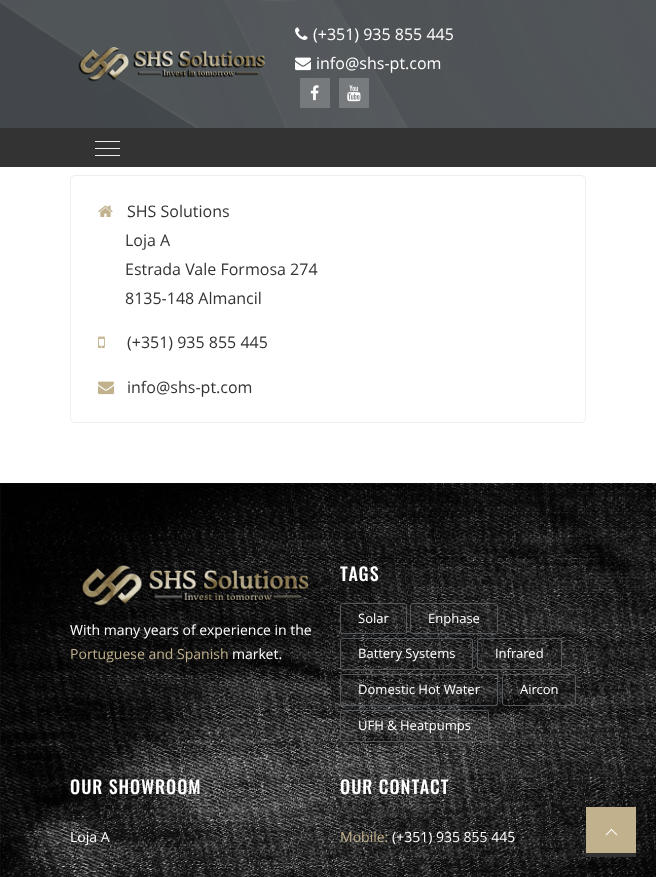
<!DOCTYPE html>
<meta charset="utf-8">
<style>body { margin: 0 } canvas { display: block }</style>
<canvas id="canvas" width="656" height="877"></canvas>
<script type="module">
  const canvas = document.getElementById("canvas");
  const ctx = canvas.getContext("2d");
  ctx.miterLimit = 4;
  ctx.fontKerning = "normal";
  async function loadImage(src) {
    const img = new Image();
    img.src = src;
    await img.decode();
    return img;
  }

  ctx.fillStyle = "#ffffff";
  ctx.fillRect(0, 0, 656, 877);
  ctx.fillStyle = "#333333";
  ctx.fillRect(0, 128, 656, 39);
  ctx.fillStyle = "#3d4246";
  ctx.fillRect(0, 0, 656, 128);
  ctx.drawImage(await loadImage("img1.png"), 0, 0, 656, 128);
  ctx.drawImage(await loadImage("img2.png"), 78, 47, 187, 35);
  ctx.drawImage(await loadImage("img3.png"), 295, 27, 13, 13);
  ctx.font = "16px Open Sans";
  ctx.fillStyle = "#ffffff";
  ctx.fillText("(+351) 935 855 445", 313, 40);
  ctx.drawImage(await loadImage("img4.png"), 295, 57, 16, 14);
  ctx.fillText("info@shs-pt.com", 316, 69);
  ctx.fillStyle = "#777a7d";
  ctx.fillRect(300, 78, 30, 30);
  ctx.drawImage(await loadImage("img5.png"), 310, 85, 9, 16);
  ctx.fillStyle = "#777b7d";
  ctx.fillRect(339, 78, 30, 30);
  ctx.drawImage(await loadImage("img6.png"), 347, 85, 14, 17);
  ctx.fillStyle = "#eeeeee";
  ctx.fillRect(95, 141, 25, 1);
  ctx.fillRect(95, 155, 25, 1);
  ctx.fillRect(95, 148, 25, 1);
  ctx.beginPath();
  ctx.roundRect(70.5, 175.5, 515, 247, 4.5);
  ctx.strokeStyle = "#eeeeee";
  ctx.stroke();
  ctx.drawImage(await loadImage("img7.png"), 98, 205, 15, 12);
  ctx.fillStyle = "#333333";
  ctx.fillText("SHS Solutions", 127, 217);
  ctx.fillText("Loja A", 125, 246);
  ctx.fillText("Estrada Vale Formosa 274", 125, 275);
  ctx.fillText("8135-148 Almancil", 125, 304);
  ctx.drawImage(await loadImage("img8.png"), 98, 336, 7, 12);
  ctx.fillText("(+351) 935 855 445", 127, 348);
  ctx.drawImage(await loadImage("img9.png"), 98, 381, 16, 14);
  ctx.fillText("info@shs-pt.com", 127, 393);
  ctx.drawImage(await loadImage("img10.png"), 0, 483, 656, 394);
  ctx.drawImage(await loadImage("img11.png"), 81, 565, 228, 41);
  ctx.font = "14px Open Sans";
  ctx.fillStyle = "#ffffff";
  ctx.fillText("With many years of experience in the", 70, 635);
  ctx.fillStyle = "#c1b18d";
  ctx.fillText("Portuguese and Spanish", 70, 659);
  ctx.fillStyle = "#ffffff";
  ctx.fillText("market.", 232, 659);
  ctx.letterSpacing = "1px";
  ctx.font = "500 18px Oswald";
  ctx.fillText("TAGS", 340, 581);
  ctx.beginPath();
  ctx.roundRect(340.5, 603.5, 66, 30, 2.5);
  ctx.strokeStyle = "#54595d";
  ctx.stroke();
  ctx.letterSpacing = "0px";
  ctx.font = "13px Open Sans";
  ctx.fillText("Solar", 358, 623);
  ctx.beginPath();
  ctx.roundRect(410.5, 603.5, 87, 30, 2.5);
  ctx.stroke();
  ctx.fillText("Enphase", 428, 623);
  ctx.beginPath();
  ctx.roundRect(340.5, 638.5, 132, 31, 2.5);
  ctx.stroke();
  ctx.fillText("Battery Systems", 358, 658);
  ctx.beginPath();
  ctx.roundRect(477.5, 638.5, 84, 31, 2.5);
  ctx.stroke();
  ctx.fillText("Infrared", 495, 658);
  ctx.beginPath();
  ctx.roundRect(340.5, 674.5, 157, 31, 2.5);
  ctx.stroke();
  ctx.fillText("Domestic Hot Water", 358, 694);
  ctx.beginPath();
  ctx.roundRect(502.5, 674.5, 73, 31, 2.5);
  ctx.stroke();
  ctx.fillText("Aircon", 520, 694);
  ctx.beginPath();
  ctx.roundRect(340.5, 710.5, 148, 31, 2.5);
  ctx.stroke();
  ctx.fillText("UFH & Heatpumps", 358, 730);
  ctx.letterSpacing = "1px";
  ctx.font = "500 18px Oswald";
  ctx.fillText("OUR SHOWROOM", 70, 794);
  ctx.letterSpacing = "0px";
  ctx.font = "14px Open Sans";
  ctx.fillText("Loja A", 70, 842);
  ctx.letterSpacing = "1px";
  ctx.font = "500 18px Oswald";
  ctx.fillText("OUR CONTACT", 340, 794);
  ctx.letterSpacing = "0px";
  ctx.font = "14px Open Sans";
  ctx.fillStyle = "#c1b18d";
  ctx.fillText("Mobile:", 340, 842);
  ctx.fillStyle = "#ffffff";
  ctx.fillText("(+351) 935 855 445", 392, 842);
  ctx.fillStyle = "#c1b18d";
  ctx.fillRect(586, 807, 50, 46);
  ctx.fillStyle = "#333333";
  ctx.fillRect(586, 853, 50, 4);
  ctx.drawImage(await loadImage("img12.png"), 605, 828, 13, 8);
</script>
